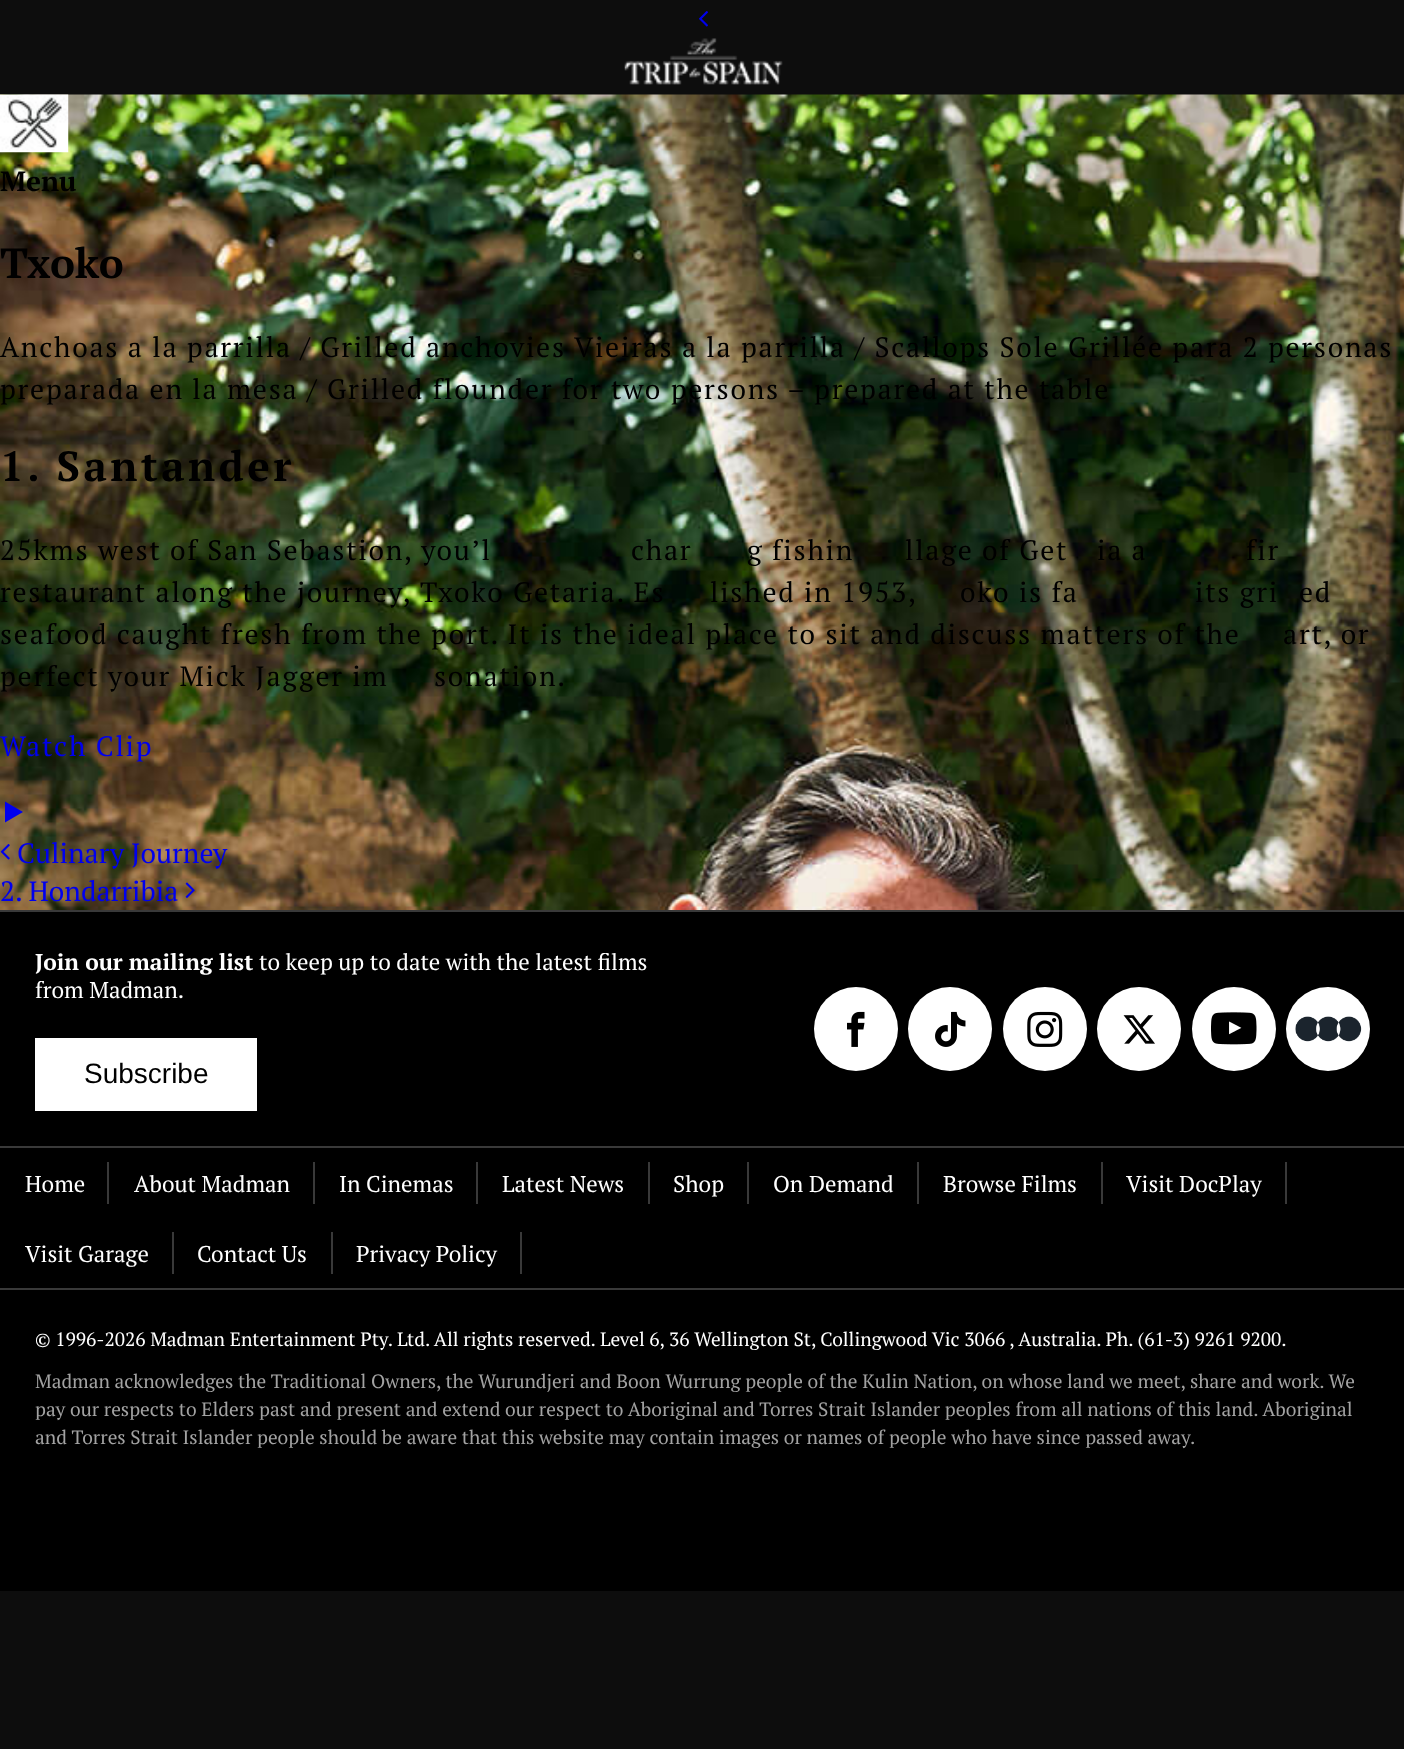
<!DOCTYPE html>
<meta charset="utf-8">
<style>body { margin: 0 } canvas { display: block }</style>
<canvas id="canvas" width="1404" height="1749"></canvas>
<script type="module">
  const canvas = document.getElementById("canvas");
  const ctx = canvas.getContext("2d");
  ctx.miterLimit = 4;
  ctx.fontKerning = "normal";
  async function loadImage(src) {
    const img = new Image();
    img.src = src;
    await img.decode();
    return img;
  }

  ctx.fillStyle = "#0d0d0d";
  ctx.fillRect(0, 0, 1404, 1749);
  ctx.drawImage(await loadImage("img1.png"), 699, 11, 9, 16);
  ctx.drawImage(await loadImage("img2.png"), 624, 38, 159, 47);
  ctx.drawImage(await loadImage("img3.png"), 0, 94, 1404, 816);
  ctx.drawImage(await loadImage("img4.png"), 0, 94, 69, 59);
  ctx.font = "bold 28px PT Serif";
  ctx.fillStyle = "#000000";
  ctx.fillText("Menu", 0, 191);
  ctx.font = "bold 42px PT Serif";
  ctx.fillText("Txoko", 0, 278);
  ctx.letterSpacing = "1.75px";
  ctx.font = "28px PT Serif";
  ctx.fillText("Anchoas a la parrilla / Grilled anchovies", 0, 357);
  ctx.fillText("Vieiras a la parrilla / Scallops Sole Grillée para 2 personas", 574, 357);
  ctx.fillText("preparada en la mesa / Grilled flounder for two persons – prepared at the table", 0, 399);
  ctx.letterSpacing = "3.5px";
  ctx.font = "bold 42px PT Serif";
  ctx.fillText("1. Santander", 0, 481);
  ctx.letterSpacing = "1.75px";
  ctx.font = "28px PT Serif";
  ctx.fillText("25kms west of San Sebastion, you’l", 0, 560);
  ctx.fillText("char", 631, 560);
  ctx.fillText("g fishin", 747, 560);
  ctx.fillText("llage of Get", 905, 560);
  ctx.fillText("ia a", 1097, 560);
  ctx.fillText("fir", 1246, 560);
  ctx.fillText("restaurant along the journey, Txoko Getaria. Es", 0, 602);
  ctx.fillText("lished in 1953,", 710, 602);
  ctx.fillText("oko is fa", 960, 602);
  ctx.fillText("its gri", 1195, 602);
  ctx.fillText("ed", 1299, 602);
  ctx.fillText("seafood caught fresh from the port. It is the ideal place to sit and discuss matters of the", 0, 644);
  ctx.fillText("art, or", 1283, 644);
  ctx.fillText("perfect your Mick Jagger im", 0, 686);
  ctx.fillText("sonation.", 434, 686);
  ctx.fillStyle = "#0000ee";
  ctx.fillText("Watch Clip", 0, 756);
  ctx.beginPath();
  ctx.moveTo(5, 801.5);
  ctx.lineTo(23, 812);
  ctx.lineTo(5, 822.5);
  ctx.closePath();
  ctx.fill();
  ctx.drawImage(await loadImage("img5.png"), 0, 844, 10, 16);
  ctx.letterSpacing = "0px";
  ctx.fillText("Culinary Journey", 17, 863);
  ctx.fillText("2. Hondarribia", 0, 901);
  ctx.drawImage(await loadImage("img6.png"), 185, 882, 10, 16);
  ctx.fillStyle = "#000000";
  ctx.fillRect(0, 912, 1404, 234);
  ctx.fillStyle = "#393939";
  ctx.fillRect(0, 910, 1404, 2);
  ctx.font = "bold 22.75px PT Serif";
  ctx.fillStyle = "#ffffff";
  ctx.fillText("Join our mailing list", 35, 970);
  ctx.font = "22.75px PT Serif";
  ctx.fillText("to keep up to date with the latest films", 259, 970);
  ctx.fillText("from Madman.", 35, 998);
  ctx.fillRect(35, 1038, 222, 73);
  ctx.font = "28px Liberation Sans";
  ctx.fillStyle = "#000000";
  ctx.fillText("Subscribe", 84, 1083);
  ctx.fillStyle = "#ffffff";
  ctx.beginPath();
  ctx.arc(856, 1029, 42, 0, Math.PI * 2);
  ctx.fill();
  ctx.drawImage(await loadImage("img7.png"), 847, 1011, 18, 36);
  ctx.beginPath();
  ctx.arc(950, 1029, 42, 0, Math.PI * 2);
  ctx.fill();
  ctx.drawImage(await loadImage("img8.png"), 935, 1011, 31, 36);
  ctx.beginPath();
  ctx.arc(1045, 1029, 42, 0, Math.PI * 2);
  ctx.fill();
  ctx.drawImage(await loadImage("img9.png"), 1027, 1011, 36, 36);
  ctx.beginPath();
  ctx.arc(1139, 1029, 42, 0, Math.PI * 2);
  ctx.fill();
  ctx.drawImage(await loadImage("img10.png"), 1123, 1015, 32, 29);
  ctx.beginPath();
  ctx.arc(1234, 1029, 42, 0, Math.PI * 2);
  ctx.fill();
  ctx.drawImage(await loadImage("img11.png"), 1211, 1012, 46, 33);
  ctx.beginPath();
  ctx.arc(1328, 1029, 42, 0, Math.PI * 2);
  ctx.fill();
  ctx.drawImage(await loadImage("img12.png"), 1295, 1016, 67, 26);
  ctx.fillStyle = "#000000";
  ctx.fillRect(0, 1148, 1404, 140);
  ctx.fillStyle = "#393939";
  ctx.fillRect(0, 1146, 1404, 2);
  ctx.font = "22.75px PT Serif";
  ctx.fillStyle = "#ffffff";
  ctx.fillText("Home", 25, 1192);
  ctx.fillStyle = "#393939";
  ctx.fillRect(107, 1162, 2, 42);
  ctx.fillStyle = "#ffffff";
  ctx.fillText("About Madman", 134, 1192);
  ctx.fillStyle = "#393939";
  ctx.fillRect(313, 1162, 2, 42);
  ctx.fillStyle = "#ffffff";
  ctx.fillText("In Cinemas", 339, 1192);
  ctx.fillStyle = "#393939";
  ctx.fillRect(476, 1162, 2, 42);
  ctx.fillStyle = "#ffffff";
  ctx.fillText("Latest News", 502, 1192);
  ctx.fillStyle = "#393939";
  ctx.fillRect(648, 1162, 2, 42);
  ctx.fillStyle = "#ffffff";
  ctx.fillText("Shop", 673, 1192);
  ctx.fillStyle = "#393939";
  ctx.fillRect(747, 1162, 2, 42);
  ctx.fillStyle = "#ffffff";
  ctx.fillText("On Demand", 773, 1192);
  ctx.fillStyle = "#393939";
  ctx.fillRect(917, 1162, 2, 42);
  ctx.fillStyle = "#ffffff";
  ctx.fillText("Browse Films", 943, 1192);
  ctx.fillStyle = "#393939";
  ctx.fillRect(1101, 1162, 2, 42);
  ctx.fillStyle = "#ffffff";
  ctx.fillText("Visit DocPlay", 1126, 1192);
  ctx.fillStyle = "#393939";
  ctx.fillRect(1285, 1162, 2, 42);
  ctx.fillStyle = "#ffffff";
  ctx.fillText("Visit Garage", 25, 1262);
  ctx.fillStyle = "#393939";
  ctx.fillRect(172, 1232, 2, 42);
  ctx.fillStyle = "#ffffff";
  ctx.fillText("Contact Us", 197, 1262);
  ctx.fillStyle = "#393939";
  ctx.fillRect(331, 1232, 2, 42);
  ctx.fillStyle = "#ffffff";
  ctx.fillText("Privacy Policy", 356, 1262);
  ctx.fillStyle = "#393939";
  ctx.fillRect(520, 1232, 2, 42);
  ctx.fillStyle = "#000000";
  ctx.fillRect(0, 1290, 1404, 301);
  ctx.fillStyle = "#393939";
  ctx.fillRect(0, 1288, 1404, 2);
  ctx.font = "19.25px PT Serif";
  ctx.fillStyle = "#ffffff";
  ctx.fillText("© 1996-2026 Madman Entertainment Pty. Ltd. All rights reserved. Level 6, 36 Wellington St, Collingwood Vic 3066 , Australia. Ph. (61-3) 9261 9200.", 35, 1346);
  ctx.fillStyle = "#a2a2a2";
  ctx.fillText("Madman acknowledges the Traditional Owners, the Wurundjeri and Boon Wurrung people of the Kulin Nation, on whose land we meet, share and work. We", 35, 1388);
  ctx.fillText("pay our respects to Elders past and present and extend our respect to Aboriginal and Torres Strait Islander peoples from all nations of this land. Aboriginal", 35, 1416);
  ctx.fillText("and Torres Strait Islander people should be aware that this website may contain images or names of people who have since passed away.", 35, 1444);
</script>
